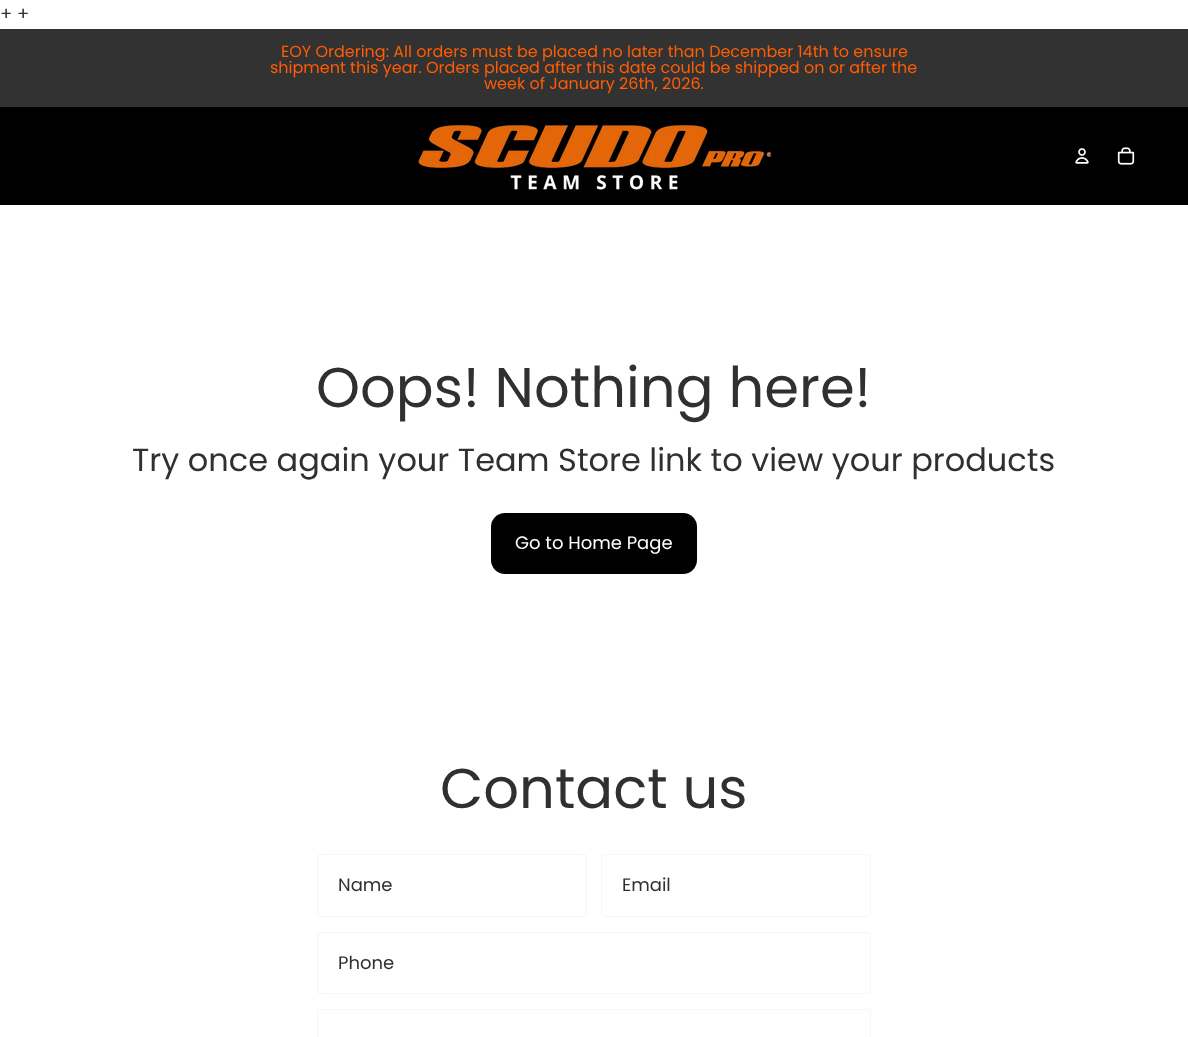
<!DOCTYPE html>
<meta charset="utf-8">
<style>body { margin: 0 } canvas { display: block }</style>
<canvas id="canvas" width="1188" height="1037"></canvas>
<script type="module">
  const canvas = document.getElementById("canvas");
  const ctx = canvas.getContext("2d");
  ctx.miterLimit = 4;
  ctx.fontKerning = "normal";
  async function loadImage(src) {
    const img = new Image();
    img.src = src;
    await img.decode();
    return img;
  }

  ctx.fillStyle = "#ffffff";
  ctx.fillRect(0, 0, 1188, 1037);
  ctx.font = "18px Poppins";
  ctx.fillStyle = "#303030";
  ctx.fillText("+ +", 0, 20);
  ctx.fillStyle = "#323232";
  ctx.fillRect(0, 29, 1188, 78);
  ctx.font = "16px Poppins";
  ctx.fillStyle = "#ff5d03";
  ctx.fillText("EOY Ordering: All orders must be placed no later than December 14th to ensure", 281, 57);
  ctx.fillText("shipment this year. Orders placed after this date could be shipped on or after the", 270, 73);
  ctx.fillText("week of January 26th, 2026.", 484, 89);
  ctx.fillStyle = "#000000";
  ctx.fillRect(0, 107, 1188, 98);
  ctx.drawImage(await loadImage("img1.png"), 418, 125, 353, 65);
  ctx.drawImage(await loadImage("img2.png"), 1075, 148, 14, 16);
  ctx.drawImage(await loadImage("img3.png"), 1117, 147, 18, 18);
  ctx.font = "56px Poppins";
  ctx.fillStyle = "#303030";
  ctx.fillText("Oops! Nothing here!", 316, 407);
  ctx.font = "32px Poppins";
  ctx.fillText("Try once again your Team Store link to view your products", 132, 471);
  ctx.fillStyle = "#000000";
  ctx.beginPath();
  ctx.roundRect(491, 513, 206, 61, 14);
  ctx.fill();
  ctx.font = "18px Poppins";
  ctx.fillStyle = "#ffffff";
  ctx.fillText("Go to Home Page", 515, 549);
  ctx.font = "56px Poppins";
  ctx.fillStyle = "#303030";
  ctx.fillText("Contact us", 440, 808);
  ctx.beginPath();
  ctx.roundRect(317.5, 854.5, 269, 62, 3.5);
  ctx.strokeStyle = "#f5f5f5";
  ctx.stroke();
  ctx.font = "18px Poppins";
  ctx.fillText("Name", 338, 891);
  ctx.beginPath();
  ctx.roundRect(601.5, 854.5, 269, 62, 3.5);
  ctx.stroke();
  ctx.fillText("Email", 622, 891);
  ctx.beginPath();
  ctx.roundRect(317.5, 932.5, 553, 61, 3.5);
  ctx.stroke();
  ctx.fillText("Phone", 338, 969);
  ctx.beginPath();
  ctx.roundRect(317.5, 1009.5, 553, 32, 3.5);
  ctx.stroke();
</script>
